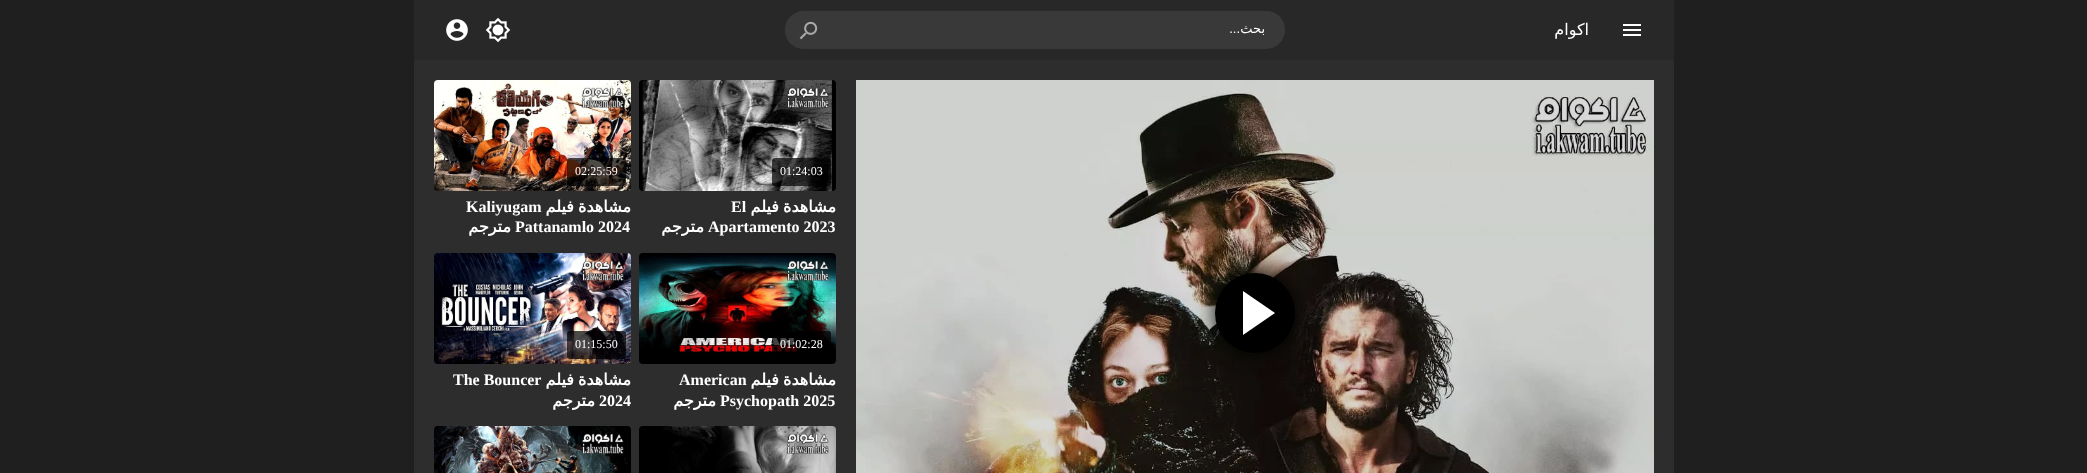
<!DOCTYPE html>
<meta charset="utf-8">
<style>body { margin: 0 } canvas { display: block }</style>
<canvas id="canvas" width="2087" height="473"></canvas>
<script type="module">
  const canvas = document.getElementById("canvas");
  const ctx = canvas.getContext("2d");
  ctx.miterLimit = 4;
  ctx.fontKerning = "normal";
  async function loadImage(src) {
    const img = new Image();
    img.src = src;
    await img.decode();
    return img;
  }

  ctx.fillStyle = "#1f1f1f";
  ctx.fillRect(0, 0, 2087, 473);
  ctx.fillStyle = "#282828";
  ctx.fillRect(414, 0, 1260, 60);
  ctx.drawImage(await loadImage("img1.png"), 446, 19, 22, 22);
  ctx.drawImage(await loadImage("img2.png"), 485, 17, 26, 26);
  ctx.fillStyle = "#393939";
  ctx.beginPath();
  ctx.roundRect(785, 11, 500, 38, 19);
  ctx.fill();
  ctx.beginPath();
  ctx.roundRect(785, 11, 50, 38, [19, 0, 0, 19]);
  ctx.fill();
  ctx.drawImage(await loadImage("img3.png"), 799, 21, 19, 19);
  ctx.beginPath();
  ctx.roundRect(835, 11, 450, 37, [0, 18.5, 18.5, 0]);
  ctx.fill();
  ctx.direction = "rtl";
  ctx.font = "13px Liberation Sans";
  ctx.fillStyle = "#ffffff";
  ctx.fillText("...", 1240, 33);
  ctx.font = "13px DejaVu Sans";
  ctx.fillText("بحث", 1265, 33);
  ctx.font = "16px DejaVu Sans";
  ctx.fillText("اكوام", 1589, 35);
  ctx.drawImage(await loadImage("img4.png"), 1623, 24, 18, 12);
  ctx.fillStyle = "#2d2d2d";
  ctx.fillRect(414, 60, 1260, 413);
  ctx.drawImage(await loadImage("img5.png"), 434, 80, 197, 111);
  ctx.fillStyle = "rgba(0, 0, 0, 0.7)";
  ctx.beginPath();
  ctx.roundRect(567, 158, 59, 28, 3);
  ctx.fill();
  ctx.direction = "ltr";
  ctx.font = "12px Liberation Serif";
  ctx.fillStyle = "#ffffff";
  ctx.fillText("02:25:59", 575, 175);
  ctx.font = "bold 16px Liberation Serif";
  ctx.fillText("Kaliyugam", 466, 212);
  ctx.wordSpacing = "-1px";
  ctx.direction = "rtl";
  ctx.font = "bold 16px DejaVu Sans";
  ctx.fillText("مشاهدة فيلم", 631, 212);
  ctx.wordSpacing = "0px";
  ctx.fillText("مترجم", 511, 232);
  ctx.direction = "ltr";
  ctx.font = "bold 16px Liberation Serif";
  ctx.fillText("Pattanamlo 2024", 515, 232);
  ctx.drawImage(await loadImage("img6.png"), 639, 80, 197, 111);
  ctx.fillStyle = "rgba(0, 0, 0, 0.7)";
  ctx.beginPath();
  ctx.roundRect(772, 158, 59, 28, 3);
  ctx.fill();
  ctx.font = "12px Liberation Serif";
  ctx.fillStyle = "#ffffff";
  ctx.fillText("01:24:03", 780, 175);
  ctx.font = "bold 16px Liberation Serif";
  ctx.fillText("El", 731, 212);
  ctx.wordSpacing = "-1px";
  ctx.direction = "rtl";
  ctx.font = "bold 16px DejaVu Sans";
  ctx.fillText("مشاهدة فيلم", 836, 212);
  ctx.wordSpacing = "0px";
  ctx.fillText("مترجم", 704, 232);
  ctx.direction = "ltr";
  ctx.font = "bold 16px Liberation Serif";
  ctx.fillText("Apartamento 2023", 708, 232);
  ctx.drawImage(await loadImage("img7.png"), 434, 253, 197, 111);
  ctx.fillStyle = "rgba(0, 0, 0, 0.7)";
  ctx.beginPath();
  ctx.roundRect(567, 331, 59, 28, 3);
  ctx.fill();
  ctx.font = "12px Liberation Serif";
  ctx.fillStyle = "#ffffff";
  ctx.fillText("01:15:50", 575, 348);
  ctx.font = "bold 16px Liberation Serif";
  ctx.fillText("The Bouncer", 453, 385);
  ctx.wordSpacing = "-1px";
  ctx.direction = "rtl";
  ctx.font = "bold 16px DejaVu Sans";
  ctx.fillText("مشاهدة فيلم", 631, 385);
  ctx.wordSpacing = "0px";
  ctx.fillText("مترجم", 595, 406);
  ctx.direction = "ltr";
  ctx.font = "bold 16px Liberation Serif";
  ctx.fillText("2024", 599, 406);
  ctx.drawImage(await loadImage("img8.png"), 639, 253, 197, 111);
  ctx.fillStyle = "rgba(0, 0, 0, 0.7)";
  ctx.beginPath();
  ctx.roundRect(772, 331, 59, 28, 3);
  ctx.fill();
  ctx.font = "12px Liberation Serif";
  ctx.fillStyle = "#ffffff";
  ctx.fillText("01:02:28", 780, 348);
  ctx.font = "bold 16px Liberation Serif";
  ctx.fillText("American", 679, 385);
  ctx.wordSpacing = "-1px";
  ctx.direction = "rtl";
  ctx.font = "bold 16px DejaVu Sans";
  ctx.fillText("مشاهدة فيلم", 836, 385);
  ctx.wordSpacing = "0px";
  ctx.fillText("مترجم", 716, 406);
  ctx.direction = "ltr";
  ctx.font = "bold 16px Liberation Serif";
  ctx.fillText("Psychopath 2025", 720, 406);
  ctx.drawImage(await loadImage("img9.png"), 434, 426, 197, 47);
  ctx.drawImage(await loadImage("img10.png"), 639, 426, 197, 47);
  ctx.drawImage(await loadImage("img11.png"), 856, 80, 798, 393);
  ctx.fillStyle = "#000000";
  ctx.filter = "blur(10px)";
  ctx.beginPath();
  ctx.roundRect(1215, 273, 80, 80, 40);
  ctx.fill();
  ctx.filter = "none";
  ctx.beginPath();
  ctx.arc(1255, 313, 40, 0, Math.PI * 2);
  ctx.fill();
  ctx.fillStyle = "#ffffff";
  ctx.beginPath();
  ctx.moveTo(1243, 335);
  ctx.lineTo(1243, 291);
  ctx.lineTo(1275, 313);
  ctx.closePath();
  ctx.fill();
</script>
